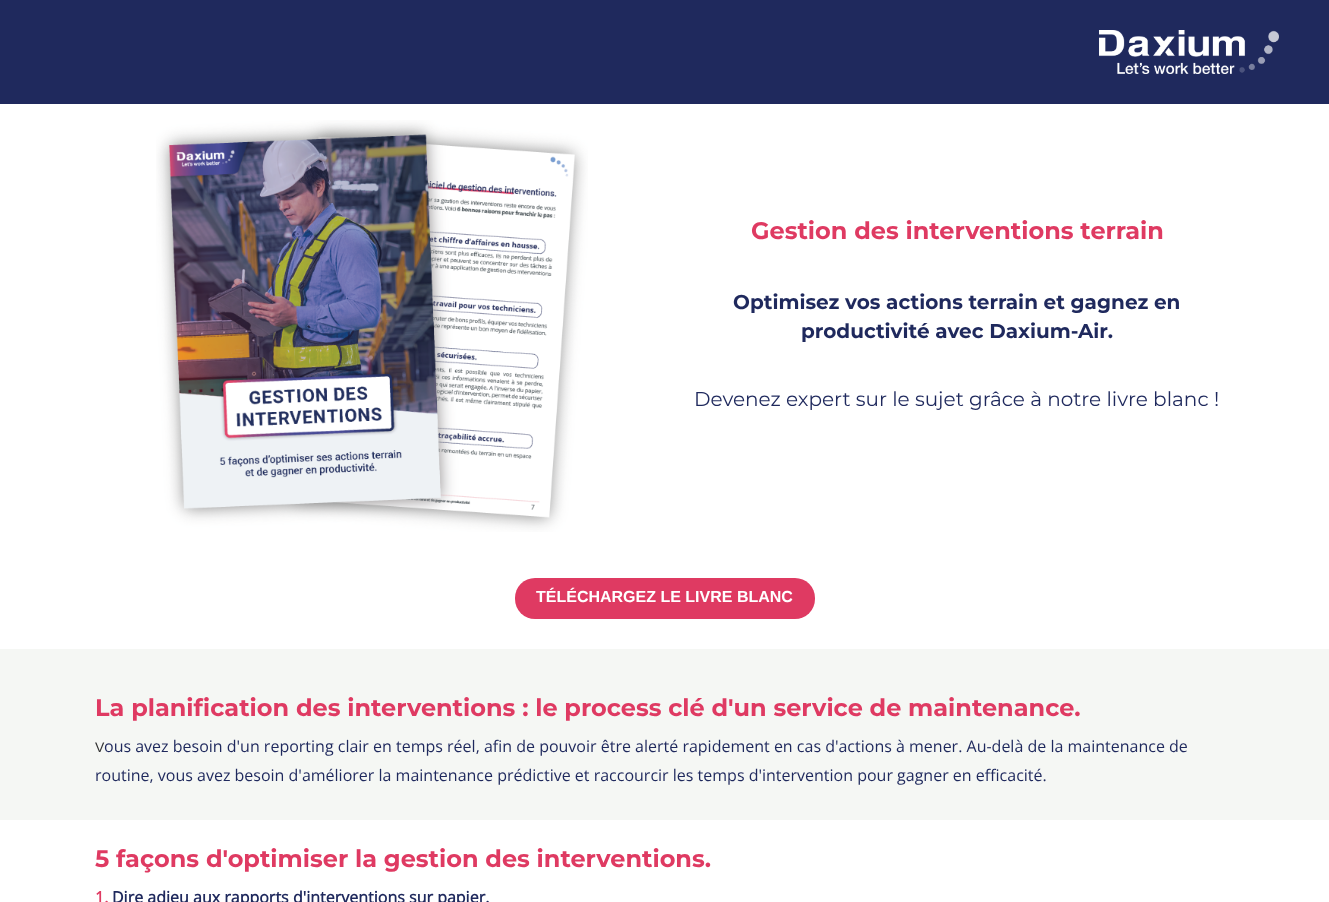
<!DOCTYPE html>
<meta charset="utf-8">
<style>body { margin: 0 } canvas { display: block }</style>
<canvas id="canvas" width="1329" height="902"></canvas>
<script type="module">
  const canvas = document.getElementById("canvas");
  const ctx = canvas.getContext("2d");
  ctx.miterLimit = 4;
  ctx.fontKerning = "normal";
  async function loadImage(src) {
    const img = new Image();
    img.src = src;
    await img.decode();
    return img;
  }

  ctx.fillStyle = "#ffffff";
  ctx.fillRect(0, 0, 1329, 902);
  ctx.fillStyle = "#1f295d";
  ctx.fillRect(0, 0, 1329, 104);
  ctx.drawImage(await loadImage("img1.png"), 1099, 30, 180, 44);
  ctx.drawImage(await loadImage("img2.png"), 156, 120, 432, 412);
  ctx.font = "bold 24px Montserrat";
  ctx.fillStyle = "#df3a62";
  ctx.fillText("Gestion des interventions terrain", 751, 239);
  ctx.font = "bold 20px Montserrat";
  ctx.fillStyle = "#1f295d";
  ctx.fillText("Optimisez vos actions terrain et gagnez en", 733, 309);
  ctx.fillText("productivité avec Daxium-Air.", 801, 338);
  ctx.font = "20px Montserrat";
  ctx.fillText("Devenez expert sur le sujet grâce à notre livre blanc !", 694, 406);
  ctx.fillStyle = "#df3a62";
  ctx.beginPath();
  ctx.roundRect(515, 578, 300, 41, 20);
  ctx.fill();
  ctx.font = "bold 16px Liberation Sans";
  ctx.fillStyle = "#ffffff";
  ctx.fillText("TÉLÉCHARGEZ LE LIVRE BLANC", 536, 602);
  ctx.fillStyle = "#f5f7f4";
  ctx.fillRect(0, 649, 1329, 171);
  ctx.font = "bold 24px Montserrat";
  ctx.fillStyle = "#df3a62";
  ctx.fillText("La planification des interventions : le process clé d'un service de maintenance.", 95, 716);
  ctx.font = "14px Liberation Sans";
  ctx.fillStyle = "#333333";
  ctx.fillText("V", 95, 752);
  ctx.font = "16px Open Sans";
  ctx.fillStyle = "#1f295d";
  ctx.fillText("ous avez besoin d'un reporting clair en temps réel, afin de pouvoir être alerté rapidement en cas d'actions à mener. Au-delà de la maintenance de", 104, 752);
  ctx.fillText("routine, vous avez besoin d'améliorer la maintenance prédictive et raccourcir les temps d'intervention pour gagner en efficacité.", 95, 781);
  ctx.font = "bold 24px Montserrat";
  ctx.fillStyle = "#df3a62";
  ctx.fillText("5 façons d'optimiser la gestion des interventions.", 95, 867);
  ctx.font = "bold 16px Open Sans";
  ctx.fillText("1.", 95, 903);
  ctx.fillStyle = "#1f295d";
  ctx.fillText("Dire adieu aux rapports d'interventions sur papier.", 112, 903);
</script>
